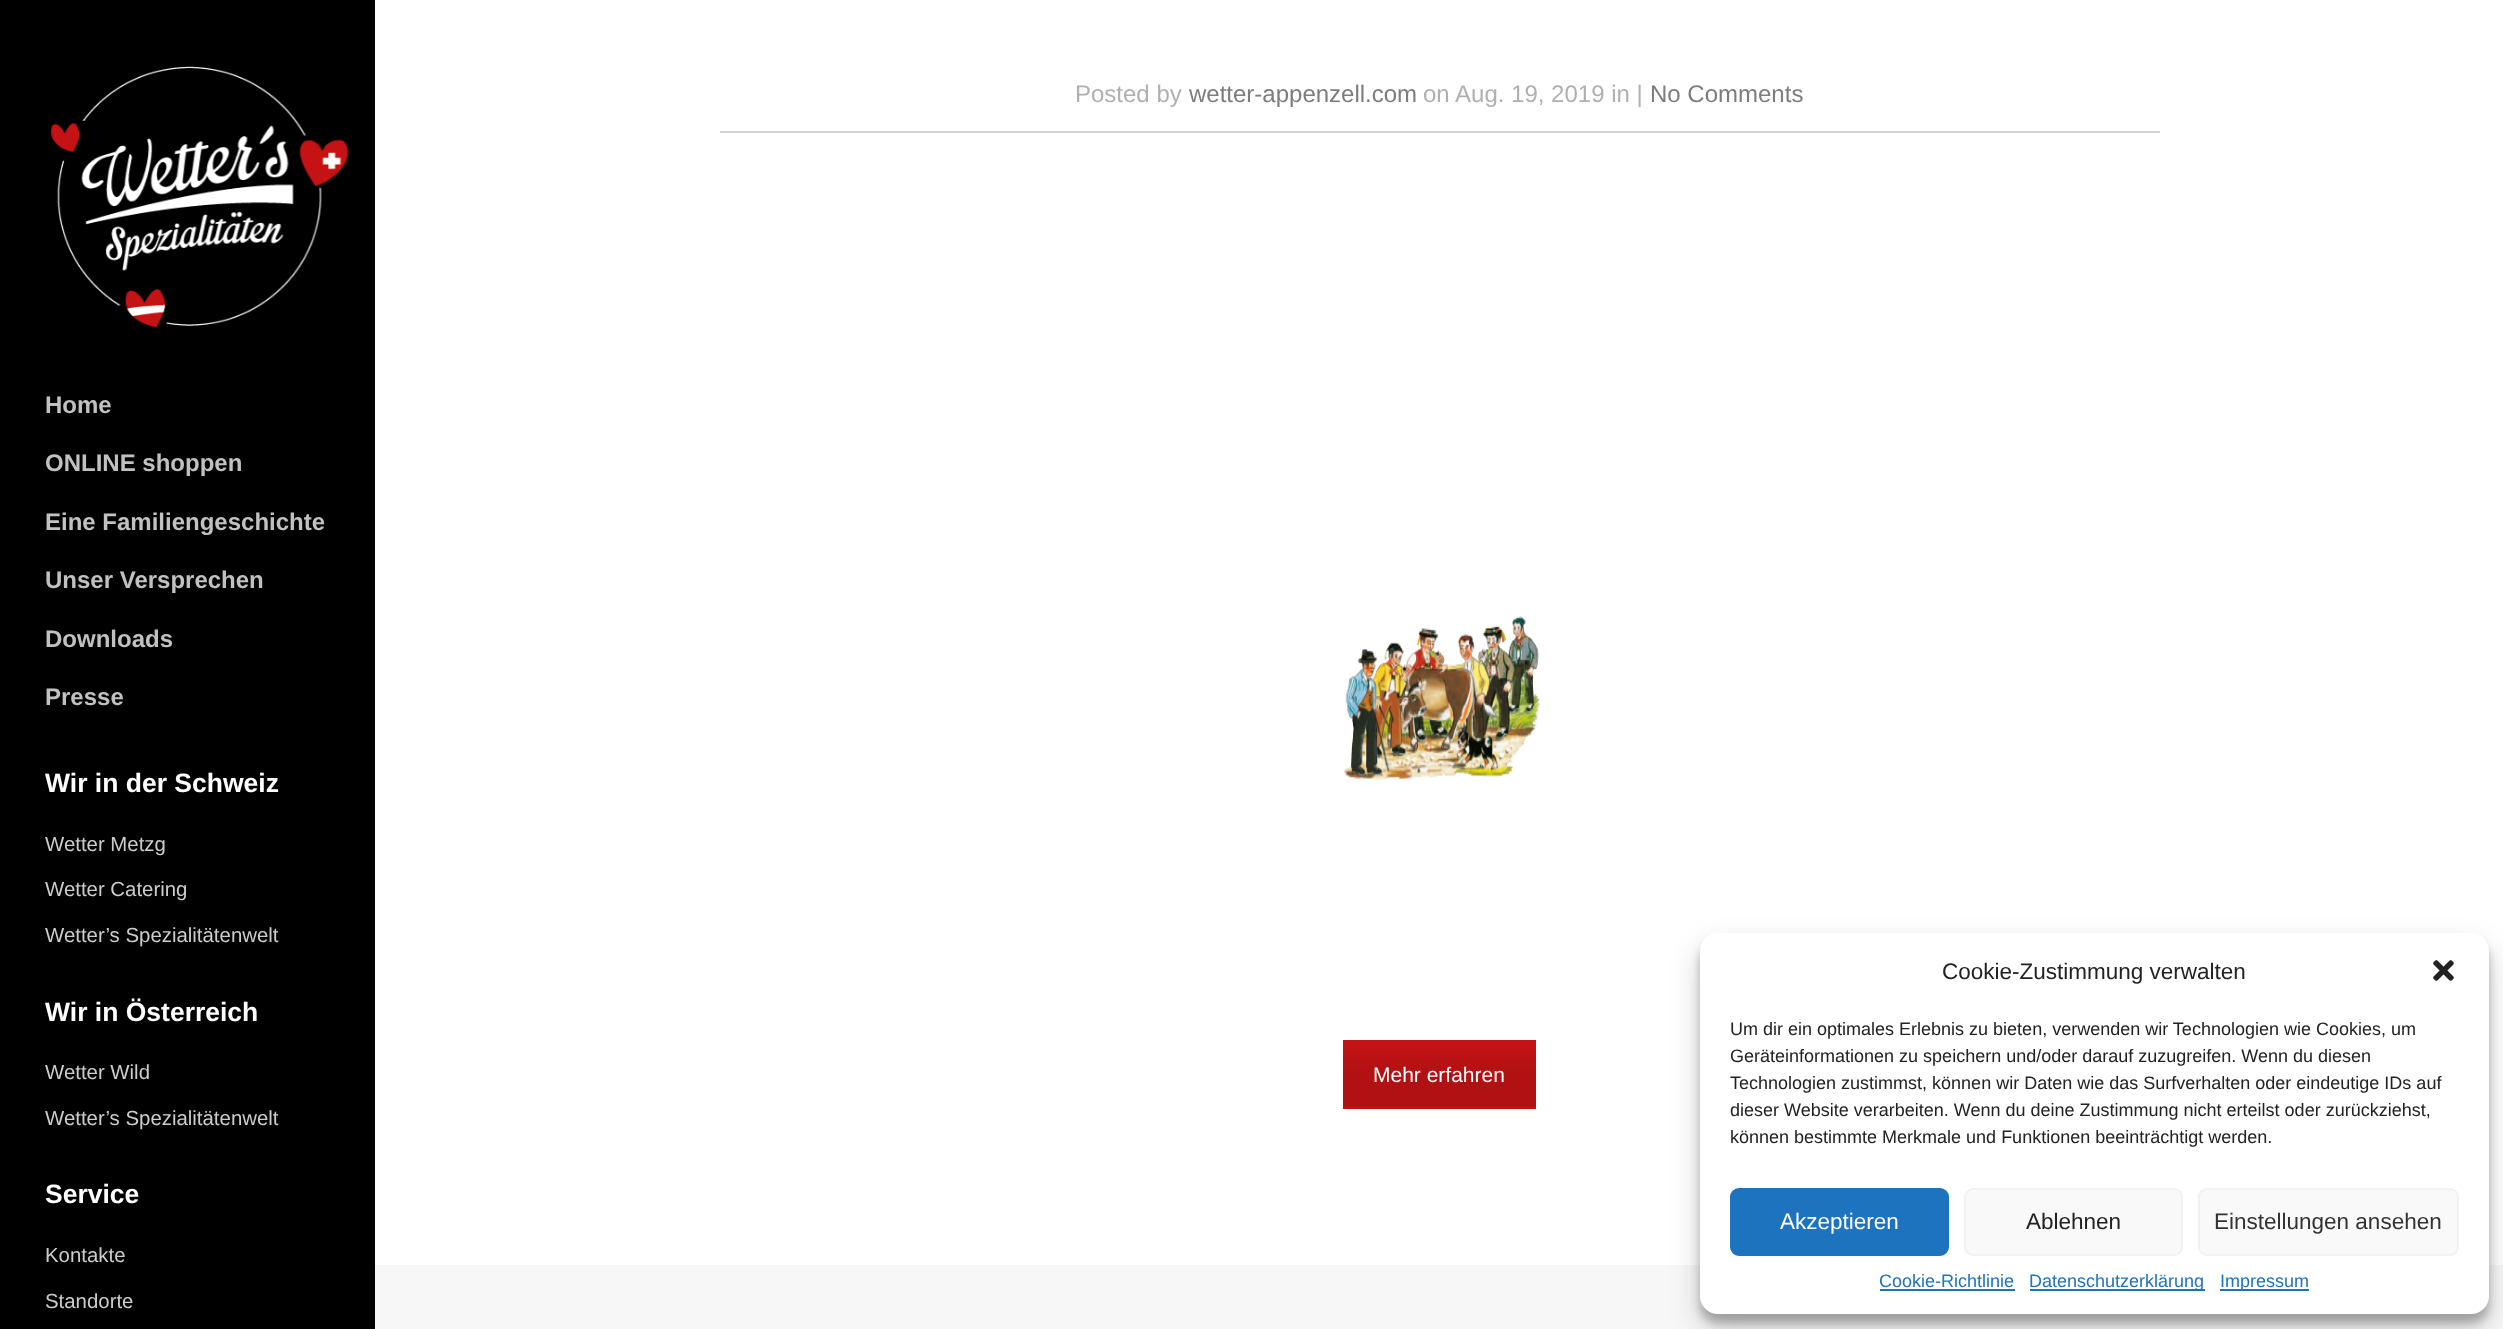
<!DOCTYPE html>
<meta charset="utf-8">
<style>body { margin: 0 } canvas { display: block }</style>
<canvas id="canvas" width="2503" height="1329"></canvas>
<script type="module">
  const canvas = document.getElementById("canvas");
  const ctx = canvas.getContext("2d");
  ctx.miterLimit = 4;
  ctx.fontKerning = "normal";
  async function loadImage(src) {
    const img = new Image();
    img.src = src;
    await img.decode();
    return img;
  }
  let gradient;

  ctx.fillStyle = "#f7f7f7";
  ctx.fillRect(0, 0, 2503, 1329);
  ctx.fillStyle = "#000000";
  ctx.fillRect(0, 0, 375, 1329);
  ctx.drawImage(await loadImage("img1.png"), 50, 66, 299, 262);
  ctx.font = "bold 24px Liberation Sans";
  ctx.fillStyle = "#c1c1c1";
  ctx.fillText("Home", 45, 413);
  ctx.fillText("ONLINE shoppen", 45, 471);
  ctx.fillText("Eine Familiengeschichte", 45, 530);
  ctx.fillText("Unser Versprechen", 45, 588);
  ctx.fillText("Downloads", 45, 647);
  ctx.fillText("Presse", 45, 705);
  ctx.font = "bold 26.5px Liberation Sans";
  ctx.fillStyle = "#ffffff";
  ctx.fillText("Wir in der Schweiz", 45, 792);
  ctx.font = "20.4px Liberation Sans";
  ctx.fillStyle = "#cccccc";
  ctx.fillText("Wetter Metzg", 45, 851);
  ctx.fillText("Wetter Catering", 45, 896);
  ctx.fillText("Wetter’s Spezialitätenwelt", 45, 942);
  ctx.font = "bold 26.5px Liberation Sans";
  ctx.fillStyle = "#ffffff";
  ctx.fillText("Wir in Österreich", 45, 1021);
  ctx.font = "20.4px Liberation Sans";
  ctx.fillStyle = "#cccccc";
  ctx.fillText("Wetter Wild", 45, 1079);
  ctx.fillText("Wetter’s Spezialitätenwelt", 45, 1125);
  ctx.font = "bold 26.5px Liberation Sans";
  ctx.fillStyle = "#ffffff";
  ctx.fillText("Service", 45, 1203);
  ctx.font = "20.4px Liberation Sans";
  ctx.fillStyle = "#cccccc";
  ctx.fillText("Kontakte", 45, 1262);
  ctx.fillText("Standorte", 45, 1308);
  ctx.fillStyle = "#ffffff";
  ctx.fillRect(375, 0, 2128, 1265);
  ctx.fillStyle = "#d3d3d3";
  ctx.fillRect(720, 131, 1440, 2);
  ctx.font = "24px Liberation Sans";
  ctx.fillStyle = "#b0b0ad";
  ctx.fillText("Posted by", 1075, 102);
  ctx.fillStyle = "#7d7d7b";
  ctx.fillText("wetter-appenzell.com", 1189, 102);
  ctx.fillStyle = "#b0b0ad";
  ctx.fillText("on Aug. 19, 2019 in |", 1423, 102);
  ctx.fillStyle = "#7d7d7b";
  ctx.fillText("No Comments", 1650, 102);
  ctx.drawImage(await loadImage("img2.png"), 1344, 616, 196, 164);
  ctx.fillStyle = "#c51315";
  ctx.fillRect(1343, 1040, 193, 69);
  gradient = ctx.createLinearGradient(1535, 1041, 1535, 1107);
  gradient.addColorStop(0, "#c51315");
  gradient.addColorStop(0.5, "#b11113");
  gradient.addColorStop(1, "#b11113");
  ctx.fillStyle = gradient;
  ctx.fillRect(1343, 1045, 193, 62);
  ctx.font = "21px Liberation Sans";
  ctx.fillStyle = "#ffffff";
  ctx.fillText("Mehr erfahren", 1373, 1082);
  ctx.fillStyle = "rgba(0, 0, 0, 0.23)";
  ctx.filter = "blur(4.5px)";
  ctx.beginPath();
  ctx.roundRect(1700, 942, 789, 381, 18);
  ctx.fill();
  ctx.filter = "none";
  ctx.fillStyle = "rgba(0, 0, 0, 0.19)";
  ctx.filter = "blur(15px)";
  ctx.beginPath();
  ctx.roundRect(1700, 948, 789, 381, 18);
  ctx.fill();
  ctx.filter = "none";
  ctx.fillStyle = "#ffffff";
  ctx.beginPath();
  ctx.roundRect(1700, 933, 789, 381, 18);
  ctx.fill();
  ctx.font = "22.5px Liberation Sans";
  ctx.fillStyle = "#222222";
  ctx.fillText("Cookie-Zustimmung verwalten", 1942, 979);
  ctx.drawImage(await loadImage("img3.png"), 2433, 960, 21, 21);
  ctx.font = "18px Liberation Sans";
  ctx.fillText("Um dir ein optimales Erlebnis zu bieten, verwenden wir Technologien wie Cookies, um", 1730, 1035);
  ctx.fillText("Geräteinformationen zu speichern und/oder darauf zuzugreifen. Wenn du diesen", 1730, 1062);
  ctx.fillText("Technologien zustimmst, können wir Daten wie das Surfverhalten oder eindeutige IDs auf", 1730, 1089);
  ctx.fillText("dieser Website verarbeiten. Wenn du deine Zustimmung nicht erteilst oder zurückziehst,", 1730, 1116);
  ctx.fillText("können bestimmte Merkmale und Funktionen beeinträchtigt werden.", 1730, 1143);
  ctx.fillStyle = "#1e73be";
  ctx.beginPath();
  ctx.roundRect(1731, 1189, 217, 66, 8);
  ctx.fill();
  ctx.strokeStyle = "#1e73be";
  ctx.lineWidth = 2;
  ctx.stroke();
  ctx.font = "22.5px Liberation Sans";
  ctx.fillStyle = "#ffffff";
  ctx.fillText("Akzeptieren", 1780, 1229);
  ctx.fillStyle = "#f9f9f9";
  ctx.beginPath();
  ctx.roundRect(1965, 1189, 217, 66, 8);
  ctx.fill();
  ctx.strokeStyle = "#f2f2f2";
  ctx.stroke();
  ctx.fillStyle = "#222222";
  ctx.fillText("Ablehnen", 2026, 1229);
  ctx.fillStyle = "#f9f9f9";
  ctx.beginPath();
  ctx.roundRect(2199, 1189, 259, 66, 8);
  ctx.fill();
  ctx.stroke();
  ctx.fillStyle = "#333333";
  ctx.fillText("Einstellungen ansehen", 2214, 1229);
  ctx.font = "18px Liberation Sans";
  ctx.fillStyle = "#1e73be";
  ctx.fillText("Cookie-Richtlinie", 1879, 1287);
  ctx.fillRect(1880, 1289, 135, 2);
  ctx.fillRect(2030, 1289, 175, 2);
  ctx.fillText("Datenschutzerklärung", 2029, 1287);
  ctx.fillRect(2220, 1289, 89, 2);
  ctx.fillText("Impressum", 2220, 1287);
</script>
